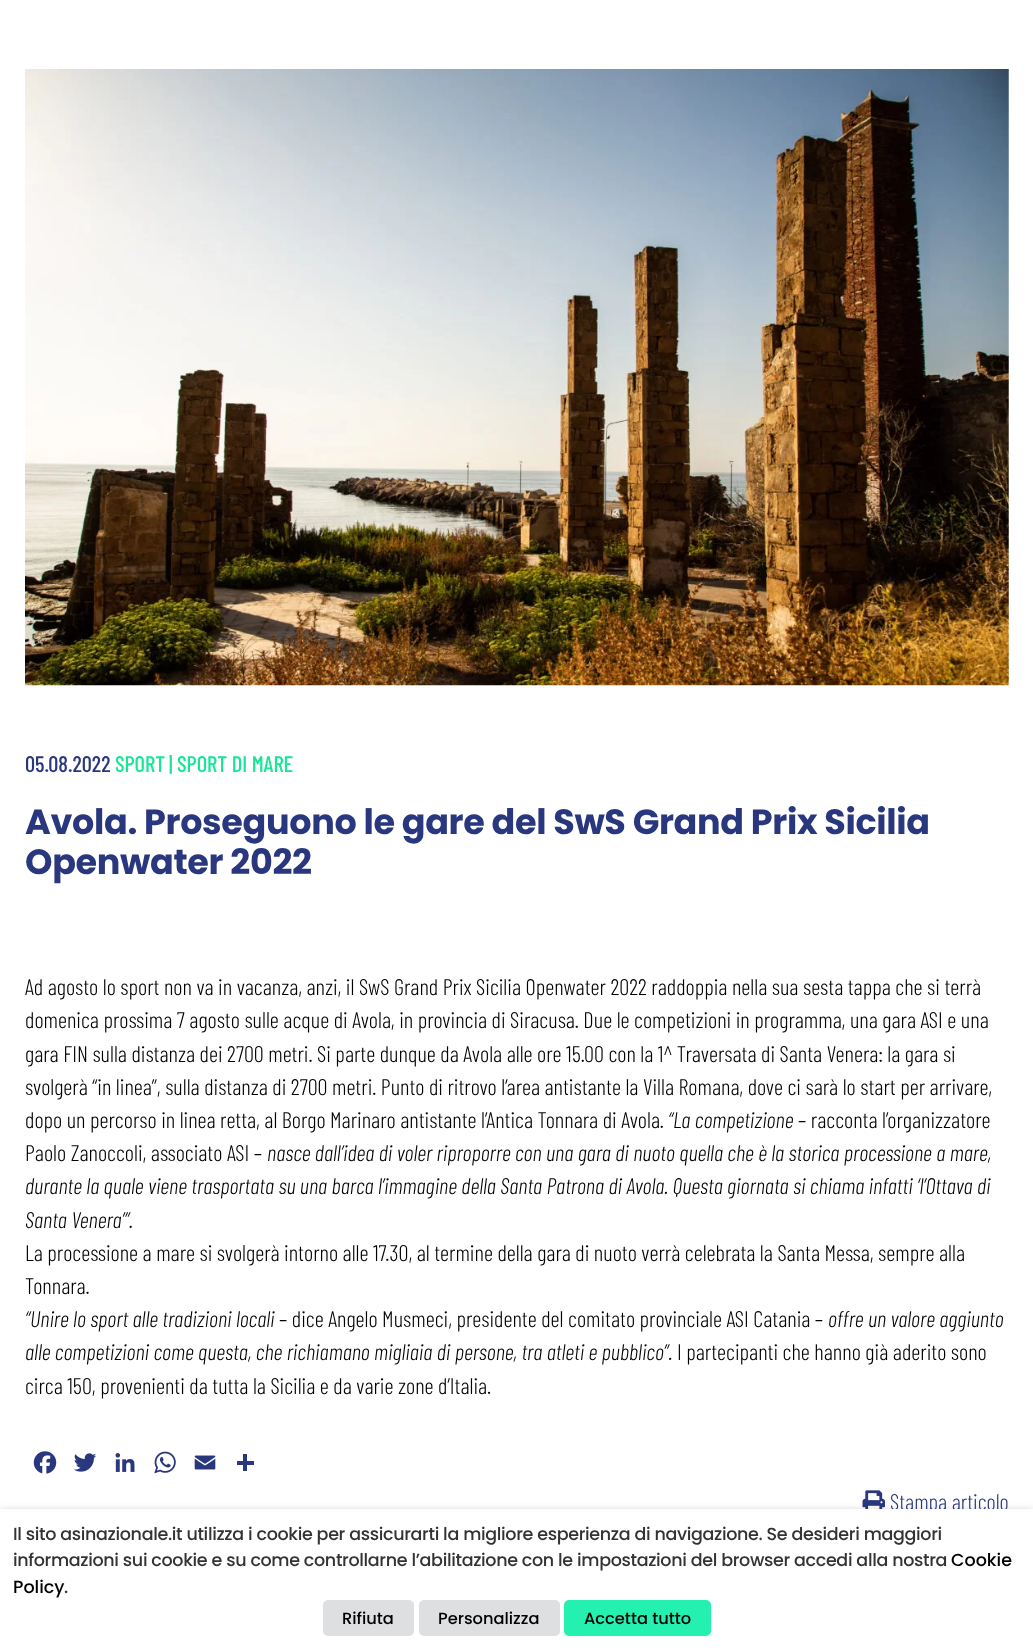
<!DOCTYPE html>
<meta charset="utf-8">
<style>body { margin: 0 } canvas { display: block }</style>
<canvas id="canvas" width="1033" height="1648"></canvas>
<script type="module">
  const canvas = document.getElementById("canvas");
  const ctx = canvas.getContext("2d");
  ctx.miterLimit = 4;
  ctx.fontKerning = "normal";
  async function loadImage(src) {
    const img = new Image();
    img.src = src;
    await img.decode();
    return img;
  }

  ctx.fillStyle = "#ffffff";
  ctx.fillRect(0, 0, 1033, 1648);
  ctx.drawImage(await loadImage("img1.png"), 25, 69, 984, 617);
  ctx.font = "500 22.5px Barlow Condensed";
  ctx.fillStyle = "#29377e";
  ctx.fillText("05.08.2022", 25, 772);
  ctx.fillStyle = "#16e695";
  ctx.fillText("SPORT", 115, 772);
  ctx.fillText("| SPORT DI MARE", 169, 772);
  ctx.letterSpacing = "-0.34px";
  ctx.font = "bold 35px Poppins";
  ctx.fillStyle = "#29377e";
  ctx.fillText("Avola. Proseguono le gare del SwS Grand Prix Sicilia", 25, 834);
  ctx.fillText("Openwater 2022", 25, 874);
  ctx.letterSpacing = "0px";
  ctx.font = "300 22.5px Barlow Condensed";
  ctx.fillStyle = "#000000";
  ctx.fillText("Ad agosto lo sport non va in vacanza, anzi, il SwS Grand Prix Sicilia Openwater 2022 raddoppia nella sua sesta tappa che si terrà", 25, 995);
  ctx.fillText("domenica prossima 7 agosto sulle acque di Avola, in provincia di Siracusa. Due le competizioni in programma, una gara ASI e una", 25, 1028);
  ctx.fillText("gara FIN sulla distanza dei 2700 metri. Si parte dunque da Avola alle ore 15.00 con la 1^ Traversata di Santa Venera: la gara si", 25, 1062);
  ctx.fillText("svolgerà “in linea”, sulla distanza di 2700 metri. Punto di ritrovo l’area antistante la Villa Romana, dove ci sarà lo start per arrivare,", 25, 1095);
  ctx.fillText("dopo un percorso in linea retta, al Borgo Marinaro antistante l’Antica Tonnara di Avola.", 25, 1128);
  ctx.font = "italic 300 22.5px Barlow Condensed";
  ctx.fillText("“La competizione", 668, 1128);
  ctx.font = "300 22.5px Barlow Condensed";
  ctx.fillText("– racconta l’organizzatore", 798, 1128);
  ctx.fillText("Paolo Zanoccoli, associato ASI –", 25, 1161);
  ctx.font = "italic 300 22.5px Barlow Condensed";
  ctx.fillText("nasce dall’idea di voler riproporre con una gara di nuoto quella che è la storica processione a mare,", 267, 1161);
  ctx.fillText("durante la quale viene trasportata su una barca l’immagine della Santa Patrona di Avola. Questa giornata si chiama infatti ‘l’Ottava di", 25, 1194);
  ctx.fillText("Santa Venera’”.", 25, 1228);
  ctx.font = "300 22.5px Barlow Condensed";
  ctx.fillText("La processione a mare si svolgerà intorno alle 17.30, al termine della gara di nuoto verrà celebrata la Santa Messa, sempre alla", 25, 1261);
  ctx.fillText("Tonnara.", 25, 1294);
  ctx.font = "italic 300 22.5px Barlow Condensed";
  ctx.fillText("“Unire lo sport alle tradizioni locali", 25, 1327);
  ctx.font = "300 22.5px Barlow Condensed";
  ctx.fillText("– dice Angelo Musmeci, presidente del comitato provinciale ASI Catania –", 279, 1327);
  ctx.font = "italic 300 22.5px Barlow Condensed";
  ctx.fillText("offre un valore aggiunto", 828, 1327);
  ctx.fillText("alle competizioni come questa, che richiamano migliaia di persone, tra atleti e pubblico”.", 25, 1360);
  ctx.font = "300 22.5px Barlow Condensed";
  ctx.fillText("I partecipanti che hanno già aderito sono", 677, 1360);
  ctx.fillText("circa 150, provenienti da tutta la Sicilia e da varie zone d’Italia.", 25, 1394);
  ctx.drawImage(await loadImage("img2.png"), 33, 1451, 24, 23);
  ctx.drawImage(await loadImage("img3.png"), 74, 1453, 23, 19);
  ctx.drawImage(await loadImage("img4.png"), 115, 1453, 20, 19);
  ctx.drawImage(await loadImage("img5.png"), 154, 1451, 22, 23);
  ctx.drawImage(await loadImage("img6.png"), 194, 1455, 22, 15);
  ctx.fillStyle = "#29377e";
  ctx.fillRect(243, 1454, 4, 17);
  ctx.fillRect(237, 1461, 17, 4);
  ctx.drawImage(await loadImage("img7.png"), 862, 1490, 23, 19);
  ctx.fillText("Stampa articolo", 890, 1510);
  ctx.fillStyle = "rgba(0, 0, 0, 0.5)";
  ctx.filter = "blur(6px)";
  ctx.beginPath();
  ctx.rect(0, 1515, 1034, 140);
  ctx.fill();
  ctx.filter = "none";
  ctx.fillStyle = "#ffffff";
  ctx.fillRect(0, 1509, 1033, 139);
  ctx.letterSpacing = "-0.34px";
  ctx.font = "500 17.5px Poppins";
  ctx.fillStyle = "#333333";
  ctx.fillText("Il sito asinazionale.it utilizza i cookie per assicurarti la migliore esperienza di navigazione. Se desideri maggiori", 13, 1540);
  ctx.fillText("informazioni sui cookie e su come controllarne l’abilitazione con le impostazioni del browser accedi alla nostra", 13, 1566);
  ctx.letterSpacing = "0px";
  ctx.fillStyle = "#000000";
  ctx.fillText("Cookie", 951, 1566);
  ctx.fillText("Policy", 13, 1593);
  ctx.letterSpacing = "-0.34px";
  ctx.fillStyle = "#333333";
  ctx.fillText(".", 64, 1593);
  ctx.fillStyle = "#dedfe0";
  ctx.beginPath();
  ctx.roundRect(323, 1600, 91, 36, 5);
  ctx.fill();
  ctx.letterSpacing = "0px";
  ctx.font = "500 16.25px Poppins";
  ctx.fillStyle = "#000000";
  ctx.fillText("Rifiuta", 342, 1624);
  ctx.fillStyle = "#dedfe0";
  ctx.beginPath();
  ctx.roundRect(419, 1600, 141, 36, 5);
  ctx.fill();
  ctx.fillStyle = "#000000";
  ctx.fillText("Personalizza", 438, 1624);
  ctx.fillStyle = "#24f1b0";
  ctx.beginPath();
  ctx.roundRect(564, 1600, 147, 36, 5);
  ctx.fill();
  ctx.fillStyle = "#000000";
  ctx.fillText("Accetta tutto", 584, 1624);
</script>
